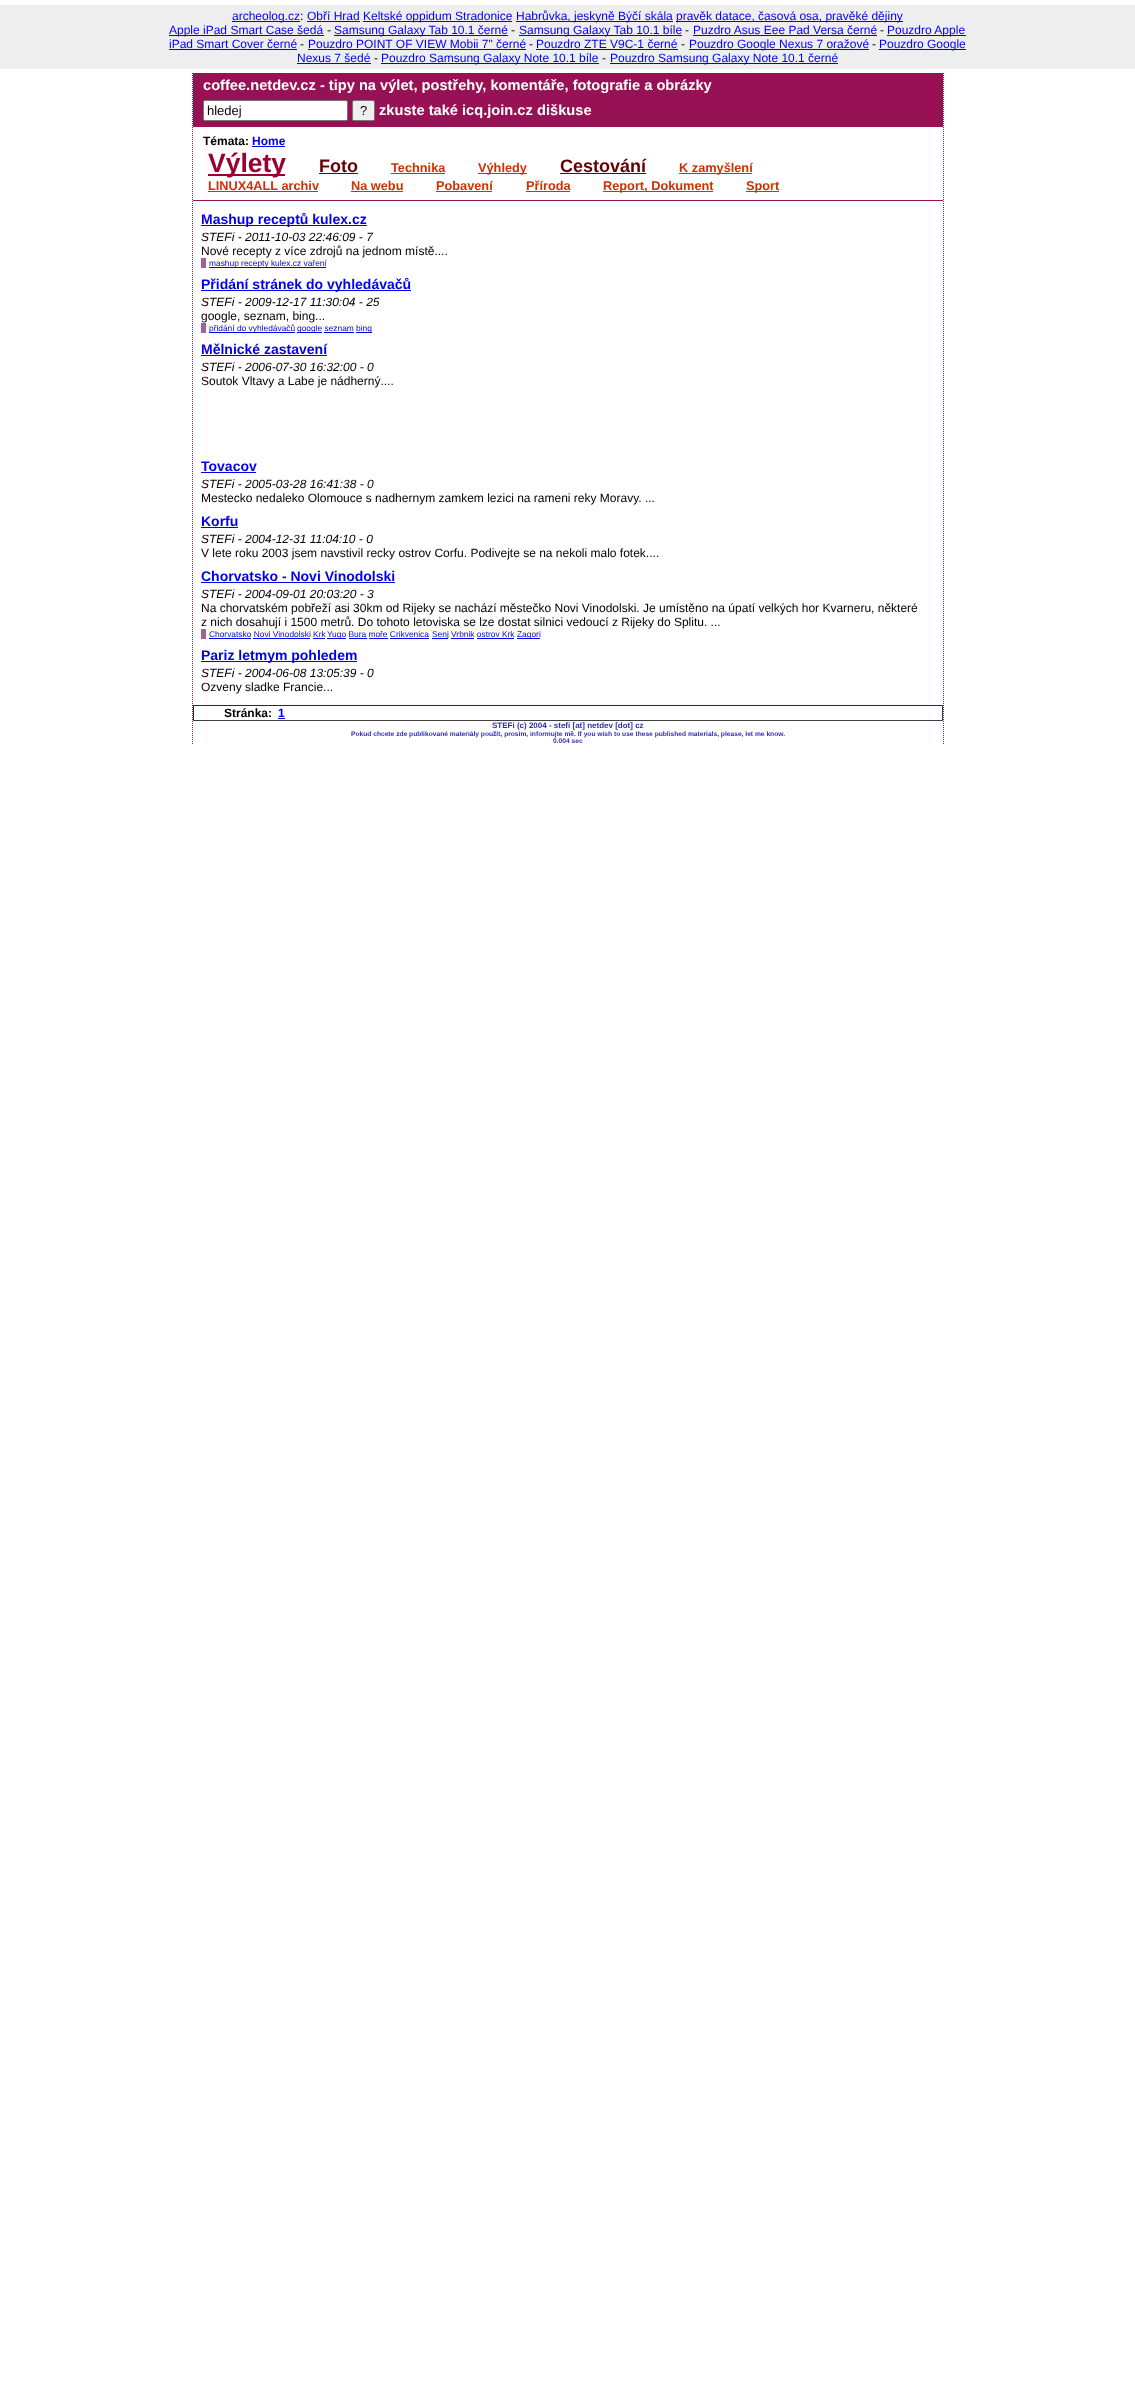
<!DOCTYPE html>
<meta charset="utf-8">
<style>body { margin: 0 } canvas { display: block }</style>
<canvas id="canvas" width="1135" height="2381"></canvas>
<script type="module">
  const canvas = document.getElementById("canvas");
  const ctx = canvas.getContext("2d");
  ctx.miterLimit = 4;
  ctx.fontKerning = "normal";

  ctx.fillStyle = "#ffffff";
  ctx.fillRect(0, 0, 1135, 2381);
  ctx.fillStyle = "#eeeeee";
  ctx.fillRect(0, 5, 1135, 64);
  ctx.fillStyle = "#0000ee";
  ctx.fillRect(232, 21, 68, 1);
  ctx.font = "12px Liberation Sans";
  ctx.fillText("archeolog.cz", 232, 20);
  ctx.fillStyle = "#000000";
  ctx.fillText(":", 300, 20);
  ctx.fillStyle = "#0000ee";
  ctx.fillText("Obří Hrad", 307, 20);
  ctx.fillRect(307, 21, 53, 1);
  ctx.fillRect(363, 21, 149, 1);
  ctx.fillText("Keltské oppidum Stradonice", 363, 20);
  ctx.fillRect(516, 21, 157, 1);
  ctx.fillText("Habrůvka, jeskyně Býčí skála", 516, 20);
  ctx.fillRect(676, 21, 227, 1);
  ctx.fillText("pravěk datace, časová osa, pravěké dějiny", 676, 20);
  ctx.fillRect(169, 35, 155, 1);
  ctx.fillText("Apple iPad Smart Case šedá", 169, 34);
  ctx.fillStyle = "#000000";
  ctx.fillText("-", 327, 34);
  ctx.fillStyle = "#0000ee";
  ctx.fillRect(334, 35, 174, 1);
  ctx.fillText("Samsung Galaxy Tab 10.1 černé", 334, 34);
  ctx.fillStyle = "#000000";
  ctx.fillText("-", 511, 34);
  ctx.fillStyle = "#0000ee";
  ctx.fillRect(519, 35, 163, 1);
  ctx.fillText("Samsung Galaxy Tab 10.1 bíle", 519, 34);
  ctx.fillStyle = "#000000";
  ctx.fillText("-", 685, 34);
  ctx.fillStyle = "#0000ee";
  ctx.fillText("Puzdro Asus Eee Pad Versa černé", 693, 34);
  ctx.fillRect(693, 35, 184, 1);
  ctx.fillStyle = "#000000";
  ctx.fillText("-", 880, 34);
  ctx.fillStyle = "#0000ee";
  ctx.fillRect(887, 35, 79, 1);
  ctx.fillText("Pouzdro Apple", 887, 34);
  ctx.fillText("iPad Smart Cover černé", 169, 48);
  ctx.fillRect(169, 49, 128, 1);
  ctx.fillStyle = "#000000";
  ctx.fillText("-", 300, 48);
  ctx.fillStyle = "#0000ee";
  ctx.fillText("Pouzdro POINT OF VIEW Mobii 7\" černé", 308, 48);
  ctx.fillRect(308, 49, 218, 1);
  ctx.fillStyle = "#000000";
  ctx.fillText("-", 529, 48);
  ctx.fillStyle = "#0000ee";
  ctx.fillText("Pouzdro ZTE V9C-1 černé", 536, 48);
  ctx.fillRect(536, 49, 142, 1);
  ctx.fillStyle = "#000000";
  ctx.fillText("-", 681, 48);
  ctx.fillStyle = "#0000ee";
  ctx.fillRect(689, 49, 180, 1);
  ctx.fillText("Pouzdro Google Nexus 7 oražové", 689, 48);
  ctx.fillStyle = "#000000";
  ctx.fillText("-", 872, 48);
  ctx.fillStyle = "#0000ee";
  ctx.fillRect(879, 49, 87, 1);
  ctx.fillText("Pouzdro Google", 879, 48);
  ctx.fillText("Nexus 7 šedé", 297, 62);
  ctx.fillRect(297, 63, 74, 1);
  ctx.fillStyle = "#000000";
  ctx.fillText("-", 374, 62);
  ctx.fillStyle = "#0000ee";
  ctx.fillRect(381, 63, 218, 1);
  ctx.fillText("Pouzdro Samsung Galaxy Note 10.1 bíle", 381, 62);
  ctx.fillStyle = "#000000";
  ctx.fillText("-", 602, 62);
  ctx.fillStyle = "#0000ee";
  ctx.fillRect(610, 63, 228, 1);
  ctx.fillText("Pouzdro Samsung Galaxy Note 10.1 černé", 610, 62);
  ctx.beginPath();
  ctx.moveTo(943.5, 73);
  ctx.lineTo(943.5, 744);
  ctx.strokeStyle = "#991155";
  ctx.setLineDash([1, 1]);
  ctx.stroke();
  ctx.beginPath();
  ctx.moveTo(192.5, 73);
  ctx.lineTo(192.5, 744);
  ctx.stroke();
  ctx.fillStyle = "#991155";
  ctx.fillRect(193, 73, 750, 54);
  ctx.font = "bold 14.65px Liberation Sans";
  ctx.fillStyle = "#ffffff";
  ctx.fillText("coffee.netdev.cz - tipy na výlet, postřehy, komentáře, fotografie a obrázky", 203, 90);
  ctx.beginPath();
  ctx.roundRect(203.5, 100.5, 144, 20, 1.5);
  ctx.fill();
  ctx.strokeStyle = "#767676";
  ctx.setLineDash([]);
  ctx.stroke();
  ctx.font = "13px Liberation Sans";
  ctx.fillStyle = "#000000";
  ctx.fillText("hledej", 207, 115);
  ctx.fillStyle = "#efefef";
  ctx.beginPath();
  ctx.roundRect(352.5, 100.5, 22, 20, 1.5);
  ctx.fill();
  ctx.stroke();
  ctx.fillStyle = "#000000";
  ctx.fillText("?", 360, 115);
  ctx.font = "bold 14.65px Liberation Sans";
  ctx.fillStyle = "#ffffff";
  ctx.fillText("zkuste také icq.join.cz", 379, 115);
  ctx.fillText("diškuse", 537, 115);
  ctx.fillStyle = "#991155";
  ctx.fillRect(193, 200, 750, 1);
  ctx.font = "bold 12px Liberation Sans";
  ctx.fillStyle = "#000000";
  ctx.fillText("Témata:", 203, 145);
  ctx.fillStyle = "#0000ee";
  ctx.fillText("Home", 252, 145);
  ctx.fillRect(252, 146, 33, 1);
  ctx.fillStyle = "#990033";
  ctx.fillRect(208, 174, 77, 2);
  ctx.font = "bold 26.5px Liberation Sans";
  ctx.fillText("Výlety", 208, 172);
  ctx.font = "bold 18px Liberation Sans";
  ctx.fillStyle = "#660000";
  ctx.fillText("Foto", 319, 172);
  ctx.fillRect(319, 173, 39, 1);
  ctx.font = "bold 12.75px Liberation Sans";
  ctx.fillStyle = "#cc3300";
  ctx.fillText("Technika", 391, 172);
  ctx.fillRect(391, 173, 54, 1);
  ctx.fillRect(478, 173, 49, 1);
  ctx.fillText("Výhledy", 478, 172);
  ctx.font = "bold 18px Liberation Sans";
  ctx.fillStyle = "#660000";
  ctx.fillText("Cestování", 560, 172);
  ctx.fillRect(560, 173, 86, 1);
  ctx.fillStyle = "#cc3300";
  ctx.fillRect(679, 173, 73, 1);
  ctx.font = "bold 12.75px Liberation Sans";
  ctx.fillText("K zamyšlení", 679, 172);
  ctx.fillText("LINUX4ALL archiv", 208, 190);
  ctx.fillRect(208, 191, 110, 1);
  ctx.fillText("Na webu", 351, 190);
  ctx.fillRect(351, 191, 52, 1);
  ctx.fillText("Pobavení", 436, 190);
  ctx.fillRect(436, 191, 56, 1);
  ctx.fillText("Příroda", 526, 190);
  ctx.fillRect(526, 191, 44, 1);
  ctx.fillRect(603, 191, 110, 1);
  ctx.fillText("Report, Dokument", 603, 190);
  ctx.fillRect(746, 191, 33, 1);
  ctx.fillText("Sport", 746, 190);
  ctx.fillStyle = "#0000ee";
  ctx.fillRect(201, 225, 166, 1);
  ctx.font = "bold 14px Liberation Sans";
  ctx.fillText("Mashup receptů kulex.cz", 201, 224);
  ctx.font = "italic 12px Liberation Sans";
  ctx.fillStyle = "#000000";
  ctx.fillText("STEFi - 2011-10-03 22:46:09 - 7", 201, 241);
  ctx.font = "12px Liberation Sans";
  ctx.fillText("Nové recepty z více zdrojů na jednom místě....", 201, 255);
  ctx.fillStyle = "#ffffee";
  ctx.fillRect(206, 258, 120, 10);
  ctx.fillStyle = "#0000ee";
  ctx.fillRect(209, 267, 117, 1);
  ctx.font = "8.4px Liberation Sans";
  ctx.fillText("mashup recepty kulex.cz vaření", 209, 266);
  ctx.fillStyle = "#996699";
  ctx.fillRect(201, 258, 5, 10);
  ctx.fillStyle = "#0000ee";
  ctx.fillRect(201, 290, 210, 1);
  ctx.font = "bold 14px Liberation Sans";
  ctx.fillText("Přidání stránek do vyhledávačů", 201, 289);
  ctx.font = "italic 12px Liberation Sans";
  ctx.fillStyle = "#000000";
  ctx.fillText("STEFi - 2009-12-17 11:30:04 - 25", 201, 306);
  ctx.font = "12px Liberation Sans";
  ctx.fillText("google, seznam, bing...", 201, 320);
  ctx.fillStyle = "#ffffee";
  ctx.fillRect(206, 323, 91, 10);
  ctx.fillStyle = "#0000ee";
  ctx.fillRect(209, 332, 86, 1);
  ctx.font = "8.4px Liberation Sans";
  ctx.fillText("přidání do vyhledávačů", 209, 331);
  ctx.fillStyle = "#996699";
  ctx.fillRect(201, 323, 5, 10);
  ctx.fillStyle = "#ffffee";
  ctx.fillRect(297, 323, 25, 9);
  ctx.fillRect(322, 323, 2, 10);
  ctx.fillRect(324, 323, 30, 9);
  ctx.fillStyle = "#0000ee";
  ctx.fillRect(297, 332, 25, 1);
  ctx.fillText("google seznam", 297, 331);
  ctx.fillStyle = "#ffffee";
  ctx.fillRect(354, 323, 2, 10);
  ctx.fillStyle = "#0000ee";
  ctx.fillRect(324, 332, 30, 1);
  ctx.fillStyle = "#ffffee";
  ctx.fillRect(356, 323, 16, 9);
  ctx.fillStyle = "#0000ee";
  ctx.fillRect(356, 332, 16, 1);
  ctx.fillText("bing", 356, 331);
  ctx.font = "bold 14px Liberation Sans";
  ctx.fillText("Mělnické zastavení", 201, 354);
  ctx.fillRect(201, 355, 126, 1);
  ctx.font = "italic 12px Liberation Sans";
  ctx.fillStyle = "#000000";
  ctx.fillText("STEFi - 2006-07-30 16:32:00 - 0", 201, 371);
  ctx.font = "12px Liberation Sans";
  ctx.fillText("Soutok Vltavy a Labe je nádherný....", 201, 385);
  ctx.font = "bold 14px Liberation Sans";
  ctx.fillStyle = "#0000ee";
  ctx.fillText("Tovacov", 201, 471);
  ctx.fillRect(201, 472, 55, 1);
  ctx.font = "italic 12px Liberation Sans";
  ctx.fillStyle = "#000000";
  ctx.fillText("STEFi - 2005-03-28 16:41:38 - 0", 201, 488);
  ctx.font = "12px Liberation Sans";
  ctx.fillText("Mestecko nedaleko Olomouce s nadhernym zamkem lezici na rameni reky Moravy. ...", 201, 502);
  ctx.font = "bold 14px Liberation Sans";
  ctx.fillStyle = "#0000ee";
  ctx.fillText("Korfu", 201, 526);
  ctx.fillRect(201, 527, 37, 1);
  ctx.font = "italic 12px Liberation Sans";
  ctx.fillStyle = "#000000";
  ctx.fillText("STEFi - 2004-12-31 11:04:10 - 0", 201, 543);
  ctx.font = "12px Liberation Sans";
  ctx.fillText("V lete roku 2003 jsem navstivil recky ostrov Corfu. Podivejte se na nekoli malo fotek....", 201, 557);
  ctx.font = "bold 14px Liberation Sans";
  ctx.fillStyle = "#0000ee";
  ctx.fillText("Chorvatsko - Novi Vinodolski", 201, 581);
  ctx.fillRect(201, 582, 194, 1);
  ctx.font = "italic 12px Liberation Sans";
  ctx.fillStyle = "#000000";
  ctx.fillText("STEFi - 2004-09-01 20:03:20 - 3", 201, 598);
  ctx.font = "12px Liberation Sans";
  ctx.fillText("Na chorvatském pobřeží asi 30km od Rijeky se nachází městečko Novi Vinodolski. Je umístěno na úpatí velkých hor Kvarneru, některé", 201, 612);
  ctx.fillText("z nich dosahují i 1500 metrů. Do tohoto letoviska se lze dostat silnici vedoucí z Rijeky do Splitu. ...", 201, 626);
  ctx.fillStyle = "#ffffee";
  ctx.fillRect(206, 629, 47, 10);
  ctx.fillRect(253, 629, 57, 9);
  ctx.fillRect(310, 629, 3, 10);
  ctx.fillRect(313, 629, 12, 9);
  ctx.fillRect(325, 629, 2, 10);
  ctx.font = "8.4px Liberation Sans";
  ctx.fillStyle = "#0000ee";
  ctx.fillText("Chorvatsko Novi Vinodolski Krk", 209, 637);
  ctx.fillStyle = "#996699";
  ctx.fillRect(201, 629, 5, 10);
  ctx.fillStyle = "#ffffee";
  ctx.fillRect(327, 629, 19, 9);
  ctx.fillStyle = "#0000ee";
  ctx.fillRect(209, 638, 42, 1);
  ctx.fillRect(253, 638, 57, 1);
  ctx.fillRect(313, 638, 12, 1);
  ctx.fillStyle = "#ffffee";
  ctx.fillRect(346, 629, 3, 10);
  ctx.fillRect(349, 629, 18, 9);
  ctx.fillRect(367, 629, 2, 10);
  ctx.fillRect(369, 629, 19, 9);
  ctx.fillRect(388, 629, 2, 10);
  ctx.fillRect(390, 629, 39, 9);
  ctx.fillRect(429, 629, 3, 10);
  ctx.fillStyle = "#0000ee";
  ctx.fillRect(327, 638, 19, 1);
  ctx.fillText("Yugo Bura moře Crikvenica", 327, 637);
  ctx.fillRect(349, 638, 18, 1);
  ctx.fillRect(369, 638, 19, 1);
  ctx.fillRect(390, 638, 39, 1);
  ctx.fillStyle = "#ffffee";
  ctx.fillRect(432, 629, 16, 9);
  ctx.fillRect(448, 629, 3, 10);
  ctx.fillRect(451, 629, 23, 9);
  ctx.fillRect(474, 629, 3, 10);
  ctx.fillRect(477, 629, 37, 9);
  ctx.fillRect(514, 629, 3, 10);
  ctx.fillStyle = "#0000ee";
  ctx.fillRect(432, 638, 16, 1);
  ctx.fillText("Senj Vrbnik ostrov Krk", 432, 637);
  ctx.fillRect(451, 638, 23, 1);
  ctx.fillRect(477, 638, 37, 1);
  ctx.fillStyle = "#ffffee";
  ctx.fillRect(517, 629, 23, 9);
  ctx.fillStyle = "#0000ee";
  ctx.fillRect(517, 638, 23, 1);
  ctx.fillText("Zagori", 517, 637);
  ctx.fillRect(201, 661, 156, 1);
  ctx.font = "bold 14px Liberation Sans";
  ctx.fillText("Pariz letmym pohledem", 201, 660);
  ctx.font = "italic 12px Liberation Sans";
  ctx.fillStyle = "#000000";
  ctx.fillText("STEFi - 2004-06-08 13:05:39 - 0", 201, 677);
  ctx.font = "12px Liberation Sans";
  ctx.fillText("Ozveny sladke Francie...", 201, 691);
  ctx.fillStyle = "#2a2a2a";
  ctx.fillRect(193, 705, 750, 1);
  ctx.fillStyle = "#3f3f3f";
  ctx.fillRect(942, 705, 1, 16);
  ctx.fillRect(193, 720, 750, 1);
  ctx.fillStyle = "#2a2a2a";
  ctx.fillRect(193, 705, 1, 16);
  ctx.font = "bold 12px Liberation Sans";
  ctx.fillStyle = "#000000";
  ctx.fillText("Stránka:", 224, 717);
  ctx.fillStyle = "#0000ee";
  ctx.fillText("1", 278, 717);
  ctx.fillRect(278, 718, 7, 1);
  ctx.font = "bold 8px Liberation Sans";
  ctx.fillStyle = "#2e2eb2";
  ctx.fillText("STEFi (c) 2004 - stefi [at] netdev [dot] cz", 492, 728);
  ctx.font = "bold 6.67px Liberation Sans";
  ctx.fillText("Pokud chcete zde publikované materiály použít, prosím, informujte mě. If you wish to use these published materials, please, let me know.", 351, 736);
  ctx.fillText("0.004 sec", 553, 743);
</script>
